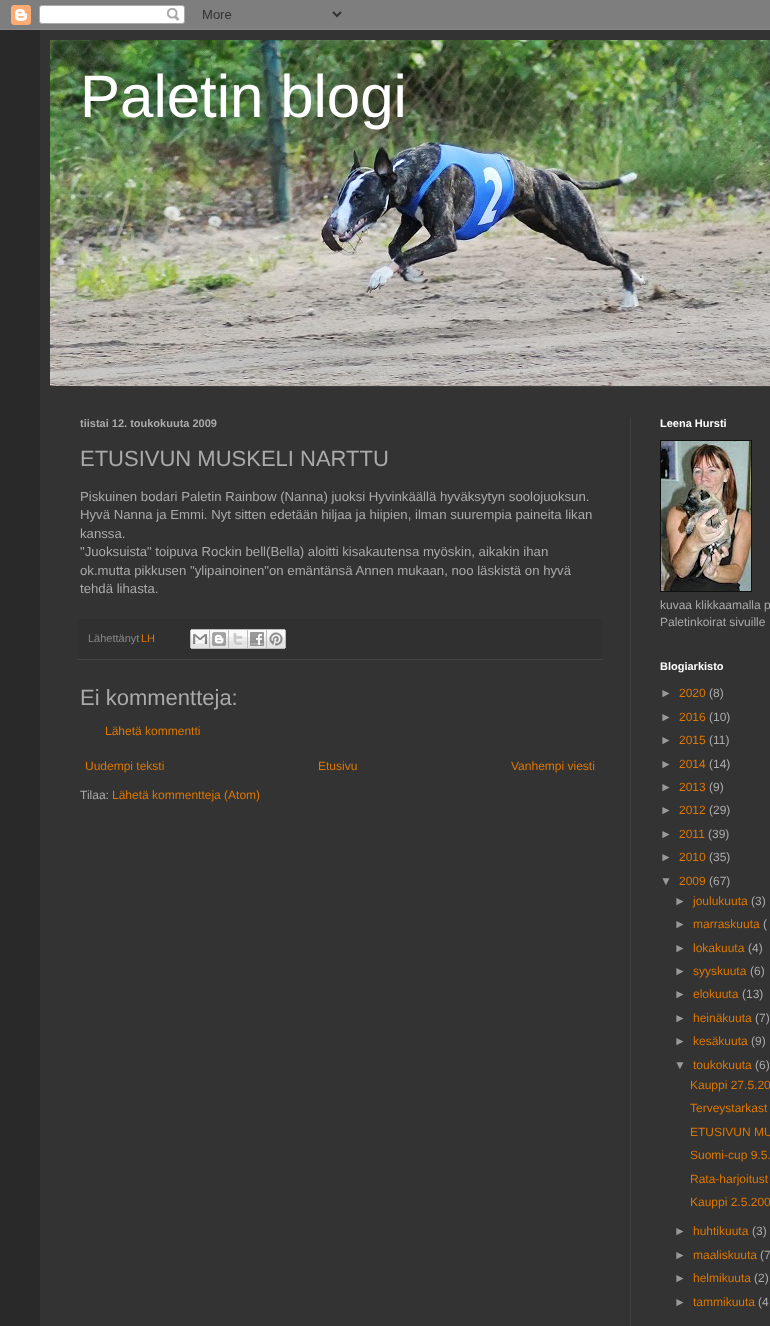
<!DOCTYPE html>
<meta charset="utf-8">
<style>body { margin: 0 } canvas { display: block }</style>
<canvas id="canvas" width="770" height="1326"></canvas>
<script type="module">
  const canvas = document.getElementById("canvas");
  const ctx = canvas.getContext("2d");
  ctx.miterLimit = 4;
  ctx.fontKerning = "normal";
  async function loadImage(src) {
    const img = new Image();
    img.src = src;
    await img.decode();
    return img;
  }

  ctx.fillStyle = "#292929";
  ctx.fillRect(0, 0, 770, 1326);
  ctx.drawImage(await loadImage("img1.png"), 0, 0, 770, 30);
  ctx.fillStyle = "#333333";
  ctx.fillRect(40, 30, 730, 1296);
  ctx.drawImage(await loadImage("img2.png"), 50, 40, 720, 346);
  ctx.font = "60px Liberation Sans";
  ctx.fillStyle = "#ffffff";
  ctx.fillText("Paletin blogi", 80, 117);
  ctx.fillStyle = "#404040";
  ctx.fillRect(80, 386, 690, 1);
  ctx.fillRect(630, 417, 1, 909);
  ctx.font = "bold 11px Liberation Sans";
  ctx.fillStyle = "#aaaaaa";
  ctx.fillText("tiistai 12. toukokuuta 2009", 80, 427);
  ctx.font = "22px Liberation Sans";
  ctx.fillText("ETUSIVUN MUSKELI NARTTU", 80, 466);
  ctx.font = "13.2px Liberation Sans";
  ctx.fillText("Piskuinen bodari Paletin Rainbow (Nanna) juoksi Hyvinkäällä hyväksytyn soolojuoksun.", 80, 501);
  ctx.fillText("Hyvä Nanna ja Emmi. Nyt sitten edetään hiljaa ja hiipien, ilman suurempia paineita likan", 80, 519);
  ctx.fillText("kanssa.", 80, 538);
  ctx.fillText("\"Juoksuista\" toipuva Rockin bell(Bella) aloitti kisakautensa myöskin, aikakin ihan", 80, 556);
  ctx.fillText("ok.mutta pikkusen \"ylipainoinen\"on emäntänsä Annen mukaan, noo läskistä on hyvä", 80, 575);
  ctx.fillText("tehdä lihasta.", 80, 593);
  ctx.fillStyle = "#303030";
  ctx.fillRect(78, 619, 524, 40);
  ctx.fillStyle = "#444444";
  ctx.fillRect(78, 659, 524, 1);
  ctx.font = "11px Liberation Sans";
  ctx.fillStyle = "#888888";
  ctx.fillText("Lähettänyt", 88, 642);
  ctx.fillStyle = "#dd7700";
  ctx.fillText("LH", 141, 642);
  ctx.drawImage(await loadImage("img3.png"), 190, 629, 20, 20);
  ctx.drawImage(await loadImage("img4.png"), 210, 629, 19, 20);
  ctx.drawImage(await loadImage("img5.png"), 229, 629, 19, 20);
  ctx.drawImage(await loadImage("img6.png"), 248, 629, 19, 20);
  ctx.drawImage(await loadImage("img7.png"), 267, 629, 19, 20);
  ctx.font = "22px Liberation Sans";
  ctx.fillStyle = "#aaaaaa";
  ctx.fillText("Ei kommentteja:", 80, 705);
  ctx.font = "12px Liberation Sans";
  ctx.fillStyle = "#dd7700";
  ctx.fillText("Lähetä kommentti", 105, 735);
  ctx.fillText("Uudempi teksti", 85, 770);
  ctx.fillText("Etusivu", 318, 770);
  ctx.fillText("Vanhempi viesti", 511, 770);
  ctx.fillStyle = "#aaaaaa";
  ctx.fillText("Tilaa:", 80, 799);
  ctx.fillStyle = "#dd7700";
  ctx.fillText("Lähetä kommentteja (Atom)", 112, 799);
  ctx.font = "bold 11px Liberation Sans";
  ctx.fillStyle = "#ffffff";
  ctx.fillText("Leena Hursti", 660, 427);
  ctx.fillStyle = "#111111";
  ctx.fillRect(660, 440, 92, 152);
  ctx.drawImage(await loadImage("img8.png"), 661, 441, 90, 150);
  ctx.font = "12px Liberation Sans";
  ctx.fillStyle = "#aaaaaa";
  ctx.fillText("kuvaa klikkaamalla p", 660, 609);
  ctx.fillText("Paletinkoirat sivuille", 660, 626);
  ctx.font = "bold 11px Liberation Sans";
  ctx.fillStyle = "#ffffff";
  ctx.fillText("Blogiarkisto", 660, 670);
  ctx.font = "12px Liberation Sans";
  ctx.fillStyle = "#999999";
  ctx.fillText("►", 660, 697);
  ctx.fillStyle = "#dd7700";
  ctx.fillText("2020", 679, 697);
  ctx.fillStyle = "#aaaaaa";
  ctx.fillText("(8)", 709, 697);
  ctx.fillStyle = "#999999";
  ctx.fillText("►", 660, 721);
  ctx.fillStyle = "#dd7700";
  ctx.fillText("2016", 679, 721);
  ctx.fillStyle = "#aaaaaa";
  ctx.fillText("(10)", 709, 721);
  ctx.fillStyle = "#999999";
  ctx.fillText("►", 660, 744);
  ctx.fillStyle = "#dd7700";
  ctx.fillText("2015", 679, 744);
  ctx.fillStyle = "#aaaaaa";
  ctx.fillText("(11)", 709, 744);
  ctx.fillStyle = "#999999";
  ctx.fillText("►", 660, 768);
  ctx.fillStyle = "#dd7700";
  ctx.fillText("2014", 679, 768);
  ctx.fillStyle = "#aaaaaa";
  ctx.fillText("(14)", 709, 768);
  ctx.fillStyle = "#999999";
  ctx.fillText("►", 660, 791);
  ctx.fillStyle = "#dd7700";
  ctx.fillText("2013", 679, 791);
  ctx.fillStyle = "#aaaaaa";
  ctx.fillText("(9)", 709, 791);
  ctx.fillStyle = "#999999";
  ctx.fillText("►", 660, 814);
  ctx.fillStyle = "#dd7700";
  ctx.fillText("2012", 679, 814);
  ctx.fillStyle = "#aaaaaa";
  ctx.fillText("(29)", 709, 814);
  ctx.fillStyle = "#999999";
  ctx.fillText("►", 660, 838);
  ctx.fillStyle = "#dd7700";
  ctx.fillText("2011", 679, 838);
  ctx.fillStyle = "#aaaaaa";
  ctx.fillText("(39)", 708, 838);
  ctx.fillStyle = "#999999";
  ctx.fillText("►", 660, 861);
  ctx.fillStyle = "#dd7700";
  ctx.fillText("2010", 679, 861);
  ctx.fillStyle = "#aaaaaa";
  ctx.fillText("(35)", 709, 861);
  ctx.fillStyle = "#999999";
  ctx.fillText("▼", 660, 885);
  ctx.fillStyle = "#dd7700";
  ctx.fillText("2009", 679, 885);
  ctx.fillStyle = "#aaaaaa";
  ctx.fillText("(67)", 709, 885);
  ctx.fillStyle = "#999999";
  ctx.fillText("►", 674, 905);
  ctx.fillStyle = "#dd7700";
  ctx.fillText("joulukuuta", 693, 905);
  ctx.fillStyle = "#aaaaaa";
  ctx.fillText("(3)", 751, 905);
  ctx.fillStyle = "#999999";
  ctx.fillText("►", 674, 928);
  ctx.fillStyle = "#dd7700";
  ctx.fillText("marraskuuta", 693, 928);
  ctx.fillStyle = "#aaaaaa";
  ctx.fillText("(", 763, 928);
  ctx.fillStyle = "#999999";
  ctx.fillText("►", 674, 952);
  ctx.fillStyle = "#dd7700";
  ctx.fillText("lokakuuta", 693, 952);
  ctx.fillStyle = "#aaaaaa";
  ctx.fillText("(4)", 748, 952);
  ctx.fillStyle = "#999999";
  ctx.fillText("►", 674, 975);
  ctx.fillStyle = "#dd7700";
  ctx.fillText("syyskuuta", 693, 975);
  ctx.fillStyle = "#aaaaaa";
  ctx.fillText("(6)", 750, 975);
  ctx.fillStyle = "#999999";
  ctx.fillText("►", 674, 998);
  ctx.fillStyle = "#dd7700";
  ctx.fillText("elokuuta", 693, 998);
  ctx.fillStyle = "#aaaaaa";
  ctx.fillText("(13)", 742, 998);
  ctx.fillStyle = "#999999";
  ctx.fillText("►", 674, 1022);
  ctx.fillStyle = "#dd7700";
  ctx.fillText("heinäkuuta", 693, 1022);
  ctx.fillStyle = "#aaaaaa";
  ctx.fillText("(7)", 755, 1022);
  ctx.fillStyle = "#999999";
  ctx.fillText("►", 674, 1045);
  ctx.fillStyle = "#dd7700";
  ctx.fillText("kesäkuuta", 693, 1045);
  ctx.fillStyle = "#aaaaaa";
  ctx.fillText("(9)", 751, 1045);
  ctx.fillStyle = "#999999";
  ctx.fillText("▼", 674, 1069);
  ctx.fillStyle = "#dd7700";
  ctx.fillText("toukokuuta", 693, 1069);
  ctx.fillStyle = "#aaaaaa";
  ctx.fillText("(6)", 755, 1069);
  ctx.fillStyle = "#dd7700";
  ctx.fillText("Kauppi 27.5.20", 690, 1089);
  ctx.fillText("Terveystarkast", 690, 1112);
  ctx.fillText("ETUSIVUN MU", 690, 1136);
  ctx.fillText("Suomi-cup 9.5.", 690, 1159);
  ctx.fillText("Rata-harjoitust", 690, 1183);
  ctx.fillText("Kauppi 2.5.200", 690, 1206);
  ctx.fillStyle = "#999999";
  ctx.fillText("►", 674, 1235);
  ctx.fillStyle = "#dd7700";
  ctx.fillText("huhtikuuta", 693, 1235);
  ctx.fillStyle = "#aaaaaa";
  ctx.fillText("(3)", 752, 1235);
  ctx.fillStyle = "#999999";
  ctx.fillText("►", 674, 1259);
  ctx.fillStyle = "#dd7700";
  ctx.fillText("maaliskuuta", 693, 1259);
  ctx.fillStyle = "#aaaaaa";
  ctx.fillText("(7", 760, 1259);
  ctx.fillStyle = "#999999";
  ctx.fillText("►", 674, 1282);
  ctx.fillStyle = "#dd7700";
  ctx.fillText("helmikuuta", 693, 1282);
  ctx.fillStyle = "#aaaaaa";
  ctx.fillText("(2)", 754, 1282);
  ctx.fillStyle = "#999999";
  ctx.fillText("►", 674, 1306);
  ctx.fillStyle = "#dd7700";
  ctx.fillText("tammikuuta", 693, 1306);
  ctx.fillStyle = "#aaaaaa";
  ctx.fillText("(4", 758, 1306);
</script>
